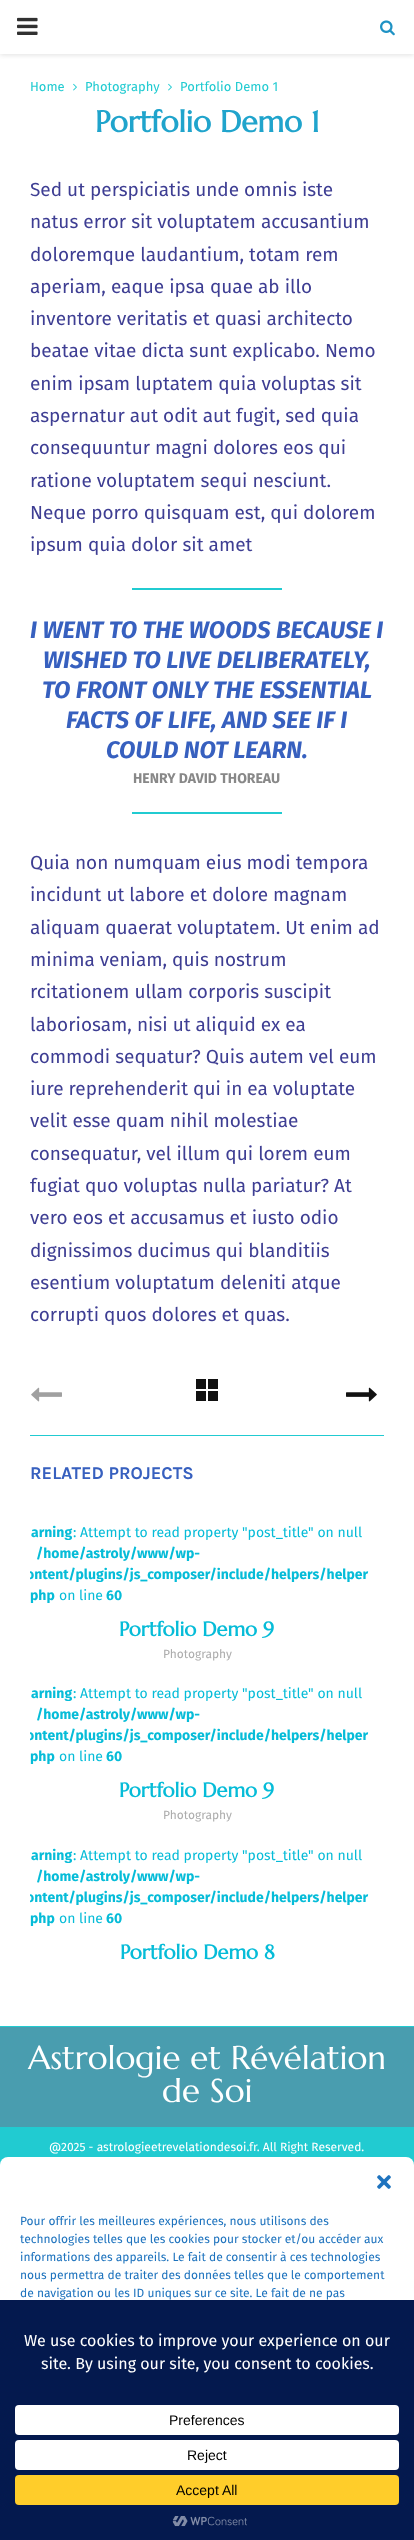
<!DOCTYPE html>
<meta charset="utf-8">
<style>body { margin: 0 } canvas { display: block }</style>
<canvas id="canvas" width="414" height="2540"></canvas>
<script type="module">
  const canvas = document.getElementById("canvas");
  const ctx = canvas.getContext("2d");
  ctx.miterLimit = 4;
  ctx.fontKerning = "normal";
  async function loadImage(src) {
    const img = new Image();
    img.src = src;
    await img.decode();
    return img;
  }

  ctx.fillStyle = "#ffffff";
  ctx.fillRect(0, 0, 414, 2540);
  ctx.save();
  ctx.beginPath();
  ctx.rect(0, 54, 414, 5);
  ctx.clip();
  ctx.fillStyle = "rgba(190, 190, 190, 0.46)";
  ctx.filter = "blur(2.5px)";
  ctx.beginPath();
  ctx.rect(0, 1, 414, 54);
  ctx.fill();
  ctx.filter = "none";
  ctx.restore();
  ctx.drawImage(await loadImage("img1.png"), 17, 17, 21, 18);
  ctx.drawImage(await loadImage("img2.png"), 380, 20, 15, 16);
  ctx.font = "13px Fira Sans";
  ctx.fillStyle = "#21cbd1";
  ctx.fillText("Home", 30, 91);
  ctx.drawImage(await loadImage("img3.png"), 73, 83, 4, 8);
  ctx.fillText("Photography", 85, 91);
  ctx.drawImage(await loadImage("img3.png"), 168, 83, 4, 8);
  ctx.fillText("Portfolio Demo 1", 180, 91);
  ctx.font = "bold 30px Marcellus";
  ctx.fillStyle = "#20a4cc";
  ctx.fillText("Portfolio Demo 1", 95, 132);
  ctx.font = "19px Fira Sans";
  ctx.fillStyle = "#3e3e93";
  ctx.fillText("Sed ut perspiciatis unde omnis iste", 30, 196);
  ctx.fillText("natus error sit voluptatem accusantium", 30, 228);
  ctx.fillText("doloremque laudantium, totam rem", 30, 261);
  ctx.fillText("aperiam, eaque ipsa quae ab illo", 30, 293);
  ctx.fillText("inventore veritatis et quasi architecto", 30, 325);
  ctx.fillText("beatae vitae dicta sunt explicabo. Nemo", 30, 357);
  ctx.fillText("enim ipsam luptatem quia voluptas sit", 30, 390);
  ctx.fillText("aspernatur aut odit aut fugit, sed quia", 30, 422);
  ctx.fillText("consequuntur magni dolores eos qui", 30, 454);
  ctx.fillText("ratione voluptatem sequi nesciunt.", 30, 487);
  ctx.fillText("Neque porro quisquam est, qui dolorem", 30, 519);
  ctx.fillText("ipsum quia dolor sit amet", 30, 551);
  ctx.fillStyle = "#21cbd1";
  ctx.fillRect(132, 588, 150, 2);
  ctx.font = "italic bold 24px Fira Sans";
  ctx.fillStyle = "#3760bf";
  ctx.fillText("I WENT TO THE WOODS BECAUSE I", 30, 638);
  ctx.fillText("WISHED TO LIVE DELIBERATELY,", 43, 668);
  ctx.fillText("TO FRONT ONLY THE ESSENTIAL", 42, 698);
  ctx.fillText("FACTS OF LIFE, AND SEE IF I", 66, 728);
  ctx.fillText("COULD NOT LEARN.", 106, 758);
  ctx.font = "bold 14px Fira Sans";
  ctx.fillStyle = "#888888";
  ctx.fillText("HENRY DAVID THOREAU", 133, 783);
  ctx.fillStyle = "#21cbd1";
  ctx.fillRect(132, 812, 150, 2);
  ctx.font = "19px Fira Sans";
  ctx.fillStyle = "#3e3e93";
  ctx.fillText("Quia non numquam eius modi tempora", 30, 869);
  ctx.fillText("incidunt ut labore et dolore magnam", 30, 901);
  ctx.fillText("aliquam quaerat voluptatem. Ut enim ad", 30, 934);
  ctx.fillText("minima veniam, quis nostrum", 30, 966);
  ctx.fillText("rcitationem ullam corporis suscipit", 30, 998);
  ctx.fillText("laboriosam, nisi ut aliquid ex ea", 30, 1031);
  ctx.fillText("commodi sequatur? Quis autem vel eum", 30, 1063);
  ctx.fillText("iure reprehenderit qui in ea voluptate", 30, 1095);
  ctx.fillText("velit esse quam nihil molestiae", 30, 1127);
  ctx.fillText("consequatur, vel illum qui lorem eum", 30, 1160);
  ctx.fillText("fugiat quo voluptas nulla pariatur? At", 30, 1192);
  ctx.fillText("vero eos et accusamus et iusto odio", 30, 1224);
  ctx.fillText("dignissimos ducimus qui blanditiis", 30, 1257);
  ctx.fillText("esentium voluptatum deleniti atque", 30, 1289);
  ctx.fillText("corrupti quos dolores et quas.", 30, 1321);
  ctx.fillStyle = "#21cbd1";
  ctx.fillRect(30, 1435, 354, 1);
  ctx.drawImage(await loadImage("img4.png"), 31, 1387, 31, 15);
  ctx.fillStyle = "#111111";
  ctx.fillRect(196, 1379, 10, 10);
  ctx.fillRect(208, 1379, 10, 10);
  ctx.fillRect(196, 1391, 10, 10);
  ctx.fillRect(208, 1391, 10, 10);
  ctx.drawImage(await loadImage("img5.png"), 346, 1387, 31, 15);
  ctx.font = "bold 18px Karla";
  ctx.fillStyle = "#3760bf";
  ctx.fillText("RELATED PROJECTS", 30, 1479);
  ctx.font = "bold 14px Fira Sans";
  ctx.fillStyle = "#06bcd8";
  ctx.fillText("arning", 31, 1537);
  ctx.font = "14px Fira Sans";
  ctx.fillText(": Attempt to read property \"post_title\" on null", 73, 1537);
  ctx.font = "bold 14px Fira Sans";
  ctx.fillText("/home/astroly/www/wp-", 36, 1558);
  ctx.save();
  ctx.beginPath();
  ctx.rect(30, 1501, 344, 465);
  ctx.clip();
  ctx.fillText("ontent/plugins/js_composer/include/helpers/helper", 26, 1579);
  ctx.restore();
  ctx.fillText("php", 30, 1600);
  ctx.font = "14px Fira Sans";
  ctx.fillText("on line", 59, 1600);
  ctx.font = "bold 14px Fira Sans";
  ctx.fillText("60", 106, 1600);
  ctx.font = "bold 20px Marcellus";
  ctx.fillText("Portfolio Demo 9", 119, 1636);
  ctx.font = "12px Fira Sans";
  ctx.fillStyle = "#adadad";
  ctx.fillText("Photography", 163, 1658);
  ctx.font = "bold 14px Fira Sans";
  ctx.fillStyle = "#06bcd8";
  ctx.fillText("arning", 31, 1698);
  ctx.font = "14px Fira Sans";
  ctx.fillText(": Attempt to read property \"post_title\" on null", 73, 1698);
  ctx.font = "bold 14px Fira Sans";
  ctx.fillText("/home/astroly/www/wp-", 36, 1719);
  ctx.save();
  ctx.beginPath();
  ctx.rect(30, 1501, 344, 465);
  ctx.clip();
  ctx.fillText("ontent/plugins/js_composer/include/helpers/helper", 26, 1740);
  ctx.restore();
  ctx.fillText("php", 30, 1761);
  ctx.font = "14px Fira Sans";
  ctx.fillText("on line", 59, 1761);
  ctx.font = "bold 14px Fira Sans";
  ctx.fillText("60", 106, 1761);
  ctx.font = "bold 20px Marcellus";
  ctx.fillText("Portfolio Demo 9", 119, 1797);
  ctx.font = "12px Fira Sans";
  ctx.fillStyle = "#adadad";
  ctx.fillText("Photography", 163, 1819);
  ctx.font = "bold 14px Fira Sans";
  ctx.fillStyle = "#06bcd8";
  ctx.fillText("arning", 31, 1860);
  ctx.font = "14px Fira Sans";
  ctx.fillText(": Attempt to read property \"post_title\" on null", 73, 1860);
  ctx.font = "bold 14px Fira Sans";
  ctx.fillText("/home/astroly/www/wp-", 36, 1881);
  ctx.save();
  ctx.beginPath();
  ctx.rect(30, 1501, 344, 465);
  ctx.clip();
  ctx.fillText("ontent/plugins/js_composer/include/helpers/helper", 26, 1902);
  ctx.restore();
  ctx.fillText("php", 30, 1923);
  ctx.font = "14px Fira Sans";
  ctx.fillText("on line", 59, 1923);
  ctx.font = "bold 14px Fira Sans";
  ctx.fillText("60", 106, 1923);
  ctx.font = "bold 20px Marcellus";
  ctx.fillText("Portfolio Demo 8", 120, 1959);
  ctx.fillStyle = "#499daf";
  ctx.fillRect(0, 2027, 414, 100);
  ctx.fillStyle = "#21cbd1";
  ctx.fillRect(0, 2026, 414, 1);
  ctx.font = "33px Marcellus";
  ctx.fillStyle = "#ffffff";
  ctx.fillText("Astrologie et Révélation", 28, 2069);
  ctx.fillText("de Soi", 162, 2102);
  ctx.fillStyle = "#21cbd1";
  ctx.fillRect(0, 2127, 414, 38);
  ctx.font = "12px Fira Sans";
  ctx.fillStyle = "#ffffff";
  ctx.fillText("@2025 - astrologieetrevelationdesoi.fr. All Right Reserved.", 49, 2151);
  ctx.beginPath();
  ctx.roundRect(0, 2157, 414, 383, 8);
  ctx.fill();
  ctx.drawImage(await loadImage("img6.png"), 377, 2175, 14, 14);
  ctx.fillStyle = "#1e73be";
  ctx.fillText("Pour offrir les meilleures expériences, nous utilisons des", 20, 2225);
  ctx.fillText("technologies telles que les cookies pour stocker et/ou accéder aux", 20, 2243);
  ctx.fillText("informations des appareils. Le fait de consentir à ces technologies", 20, 2261);
  ctx.fillText("nous permettra de traiter des données telles que le comportement", 20, 2279);
  ctx.fillText("de navigation ou les ID uniques sur ce site. Le fait de ne pas", 20, 2297);
  ctx.fillStyle = "#04194e";
  ctx.fillRect(0, 2300, 414, 240);
  ctx.font = "16px Fira Sans";
  ctx.fillStyle = "#ffffff";
  ctx.fillText("We use cookies to improve your experience on our", 24, 2346);
  ctx.fillText("site. By using our site, you consent to cookies.", 41, 2369);
  ctx.beginPath();
  ctx.roundRect(15, 2405, 384, 30, 4);
  ctx.fill();
  ctx.font = "14px Liberation Sans";
  ctx.fillStyle = "#000000";
  ctx.fillText("Preferences", 169, 2425);
  ctx.fillStyle = "#ffffff";
  ctx.beginPath();
  ctx.roundRect(15, 2440, 384, 30, 4);
  ctx.fill();
  ctx.fillStyle = "#000000";
  ctx.fillText("Reject", 187, 2460);
  ctx.fillStyle = "#ffcd2a";
  ctx.beginPath();
  ctx.roundRect(15, 2475, 384, 30, 4);
  ctx.fill();
  ctx.fillStyle = "#000000";
  ctx.fillText("Accept All", 176, 2495);
  ctx.drawImage(await loadImage("img7.png"), 172, 2516, 75, 11);
</script>
